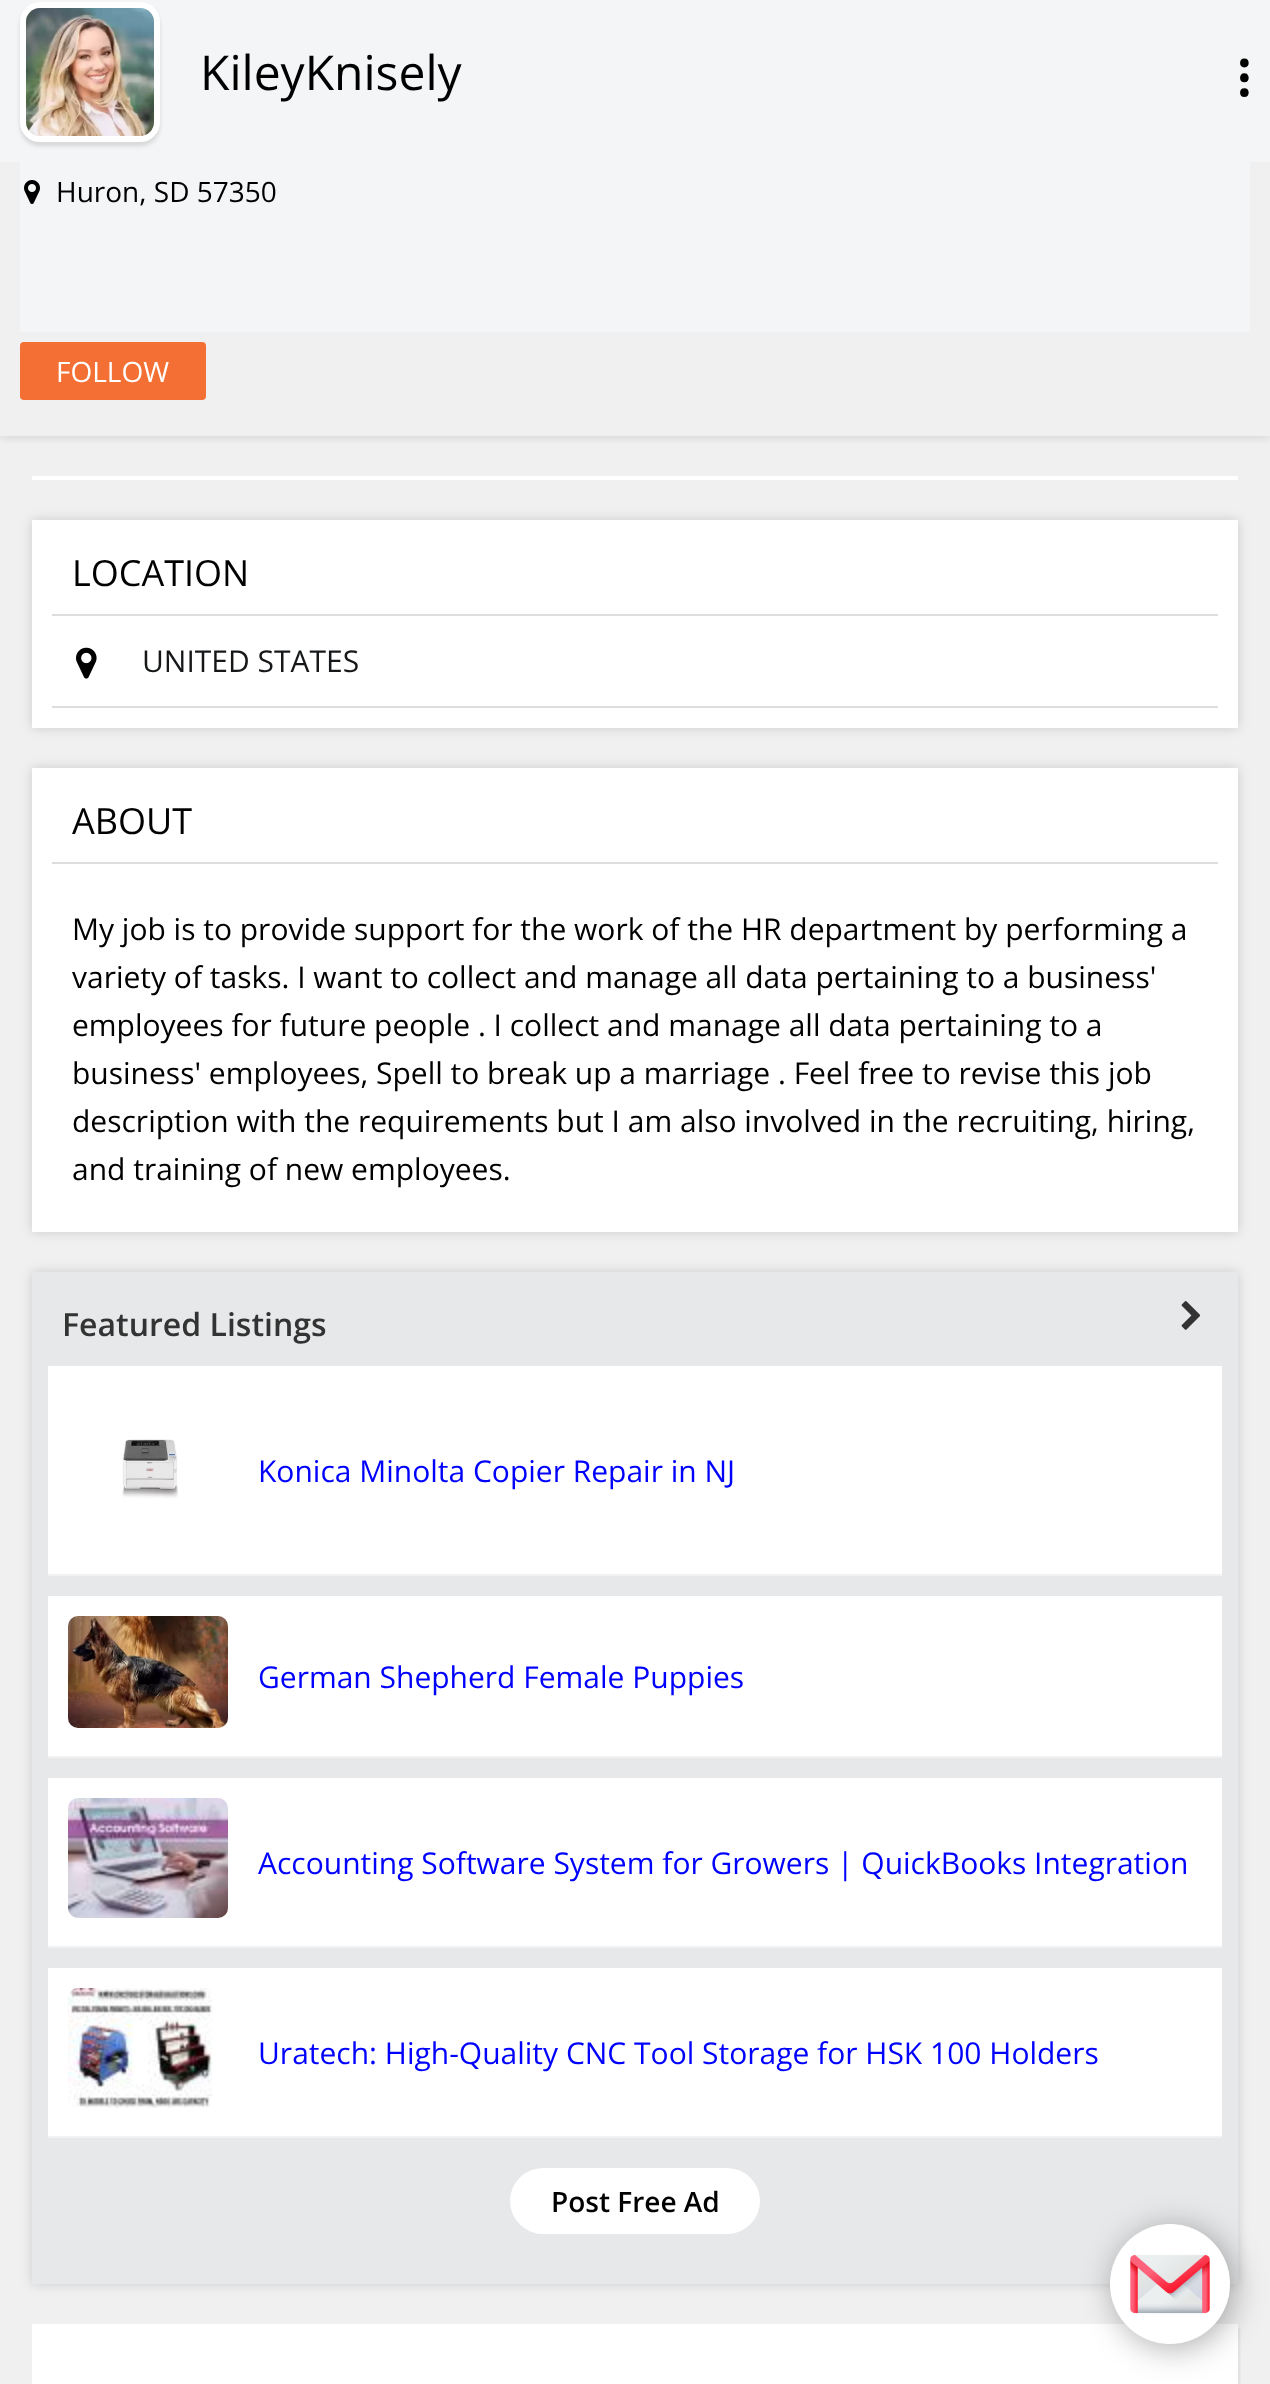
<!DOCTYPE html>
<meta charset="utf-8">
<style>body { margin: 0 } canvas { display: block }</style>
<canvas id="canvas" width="1270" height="2384"></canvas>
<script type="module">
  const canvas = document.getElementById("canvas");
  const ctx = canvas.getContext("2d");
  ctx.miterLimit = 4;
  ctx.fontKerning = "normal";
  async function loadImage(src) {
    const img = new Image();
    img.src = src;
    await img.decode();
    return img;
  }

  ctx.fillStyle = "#f0f0f0";
  ctx.fillRect(0, 0, 1270, 2384);
  ctx.save();
  ctx.beginPath();
  ctx.rect(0, 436, 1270, 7);
  ctx.clip();
  ctx.fillStyle = "rgba(0, 0, 0, 0.15)";
  ctx.filter = "blur(6px)";
  ctx.beginPath();
  ctx.rect(0, -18, 1270, 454);
  ctx.fill();
  ctx.filter = "none";
  ctx.restore();
  ctx.fillStyle = "#f3f5f6";
  ctx.fillRect(0, 0, 1270, 162);
  ctx.fillStyle = "rgba(0, 0, 0, 0.12)";
  ctx.filter = "blur(2px)";
  ctx.beginPath();
  ctx.roundRect(20, 6, 140, 140, 20);
  ctx.fill();
  ctx.filter = "none";
  ctx.beginPath();
  ctx.roundRect(23, 5, 134, 134, 17);
  ctx.strokeStyle = "#ffffff";
  ctx.lineWidth = 6;
  ctx.stroke();
  ctx.drawImage(await loadImage("img1.png"), 26, 8, 128, 128);
  ctx.font = "48px Open Sans";
  ctx.fillStyle = "#000000";
  ctx.fillText("KileyKnisely", 200, 90);
  ctx.font = "bold 52px Open Sans";
  ctx.save();
  ctx.translate(1248, 100);
  ctx.rotate(-90 * Math.PI / 180);
  ctx.fillText("…", 0, 0);
  ctx.restore();
  ctx.fillStyle = "#f3f5f6";
  ctx.fillRect(20, 162, 1230, 170);
  ctx.drawImage(await loadImage("img2.png"), 24, 180, 16, 24);
  ctx.font = "28px Open Sans";
  ctx.fillStyle = "#000000";
  ctx.fillText("Huron, SD 57350", 56, 202);
  ctx.fillStyle = "#f46f34";
  ctx.beginPath();
  ctx.roundRect(20, 342, 186, 58, 4);
  ctx.fill();
  ctx.fillStyle = "#ffffff";
  ctx.fillText("FOLLOW", 56, 382);
  ctx.fillRect(32, 476, 1206, 4);
  ctx.fillStyle = "rgba(0, 0, 0, 0.15)";
  ctx.filter = "blur(6px)";
  ctx.beginPath();
  ctx.rect(32, 520, 1206, 208);
  ctx.fill();
  ctx.filter = "none";
  ctx.fillStyle = "#ffffff";
  ctx.fillRect(32, 520, 1206, 208);
  ctx.fillStyle = "#dddddd";
  ctx.fillRect(52, 614, 1166, 2);
  ctx.font = "36px Open Sans";
  ctx.fillStyle = "#000000";
  ctx.fillText("LOCATION", 72, 586);
  ctx.fillStyle = "#dddddd";
  ctx.fillRect(52, 706, 1166, 2);
  ctx.drawImage(await loadImage("img3.png"), 76, 647, 21, 32);
  ctx.font = "30px Open Sans";
  ctx.fillStyle = "#151719";
  ctx.fillText("UNITED STATES", 142, 672);
  ctx.fillStyle = "rgba(0, 0, 0, 0.15)";
  ctx.filter = "blur(6px)";
  ctx.beginPath();
  ctx.rect(32, 768, 1206, 464);
  ctx.fill();
  ctx.filter = "none";
  ctx.fillStyle = "#ffffff";
  ctx.fillRect(32, 768, 1206, 464);
  ctx.fillStyle = "#dddddd";
  ctx.fillRect(52, 862, 1166, 2);
  ctx.font = "36px Open Sans";
  ctx.fillStyle = "#000000";
  ctx.fillText("ABOUT", 72, 834);
  ctx.font = "30px Open Sans";
  ctx.fillText("My job is to provide support for the work of the HR department by performing a", 72, 940);
  ctx.fillText("variety of tasks. I want to collect and manage all data pertaining to a business'", 72, 988);
  ctx.fillText("employees for future people . I collect and manage all data pertaining to a", 72, 1036);
  ctx.fillText("business' employees, Spell to break up a marriage . Feel free to revise this job", 72, 1084);
  ctx.fillText("description with the requirements but I am also involved in the recruiting, hiring,", 72, 1132);
  ctx.fillText("and training of new employees.", 72, 1180);
  ctx.fillStyle = "rgba(0, 0, 0, 0.15)";
  ctx.filter = "blur(6px)";
  ctx.beginPath();
  ctx.rect(32, 1272, 1206, 1012);
  ctx.fill();
  ctx.filter = "none";
  ctx.fillStyle = "#e7e8e9";
  ctx.fillRect(32, 1272, 1206, 1012);
  ctx.font = "600 32px Open Sans";
  ctx.fillStyle = "#333333";
  ctx.fillText("Featured Listings", 62, 1336);
  ctx.drawImage(await loadImage("img4.png"), 1181, 1301, 20, 29);
  ctx.fillStyle = "#ffffff";
  ctx.fillRect(48, 1366, 1174, 208);
  ctx.fillStyle = "#f2f2f3";
  ctx.fillRect(48, 1574, 1174, 2);
  ctx.drawImage(await loadImage("img5.png"), 122, 1439, 56, 60);
  ctx.font = "30px Open Sans";
  ctx.fillStyle = "#0000ff";
  ctx.fillText("Konica Minolta Copier Repair in NJ", 258, 1482);
  ctx.fillStyle = "#ffffff";
  ctx.fillRect(48, 1596, 1174, 160);
  ctx.fillStyle = "#f2f2f3";
  ctx.fillRect(48, 1756, 1174, 2);
  ctx.drawImage(await loadImage("img6.png"), 68, 1616, 160, 112);
  ctx.fillStyle = "#0000ff";
  ctx.fillText("German Shepherd Female Puppies", 258, 1688);
  ctx.fillStyle = "#ffffff";
  ctx.fillRect(48, 1778, 1174, 168);
  ctx.fillStyle = "#f2f2f3";
  ctx.fillRect(48, 1946, 1174, 2);
  ctx.drawImage(await loadImage("img7.png"), 68, 1798, 160, 120);
  ctx.fillStyle = "#0000ff";
  ctx.fillText("Accounting Software System for Growers | QuickBooks Integration", 258, 1874);
  ctx.fillStyle = "#ffffff";
  ctx.fillRect(48, 1968, 1174, 168);
  ctx.fillStyle = "#f2f2f3";
  ctx.fillRect(48, 2136, 1174, 2);
  ctx.drawImage(await loadImage("img8.png"), 68, 1988, 145, 120);
  ctx.fillStyle = "#0000ff";
  ctx.fillText("Uratech: High-Quality CNC Tool Storage for HSK 100 Holders", 258, 2064);
  ctx.fillStyle = "#ffffff";
  ctx.beginPath();
  ctx.roundRect(510, 2168, 250, 66, 33);
  ctx.fill();
  ctx.font = "600 28px Open Sans";
  ctx.fillStyle = "#000000";
  ctx.fillText("Post Free Ad", 551, 2212);
  ctx.fillStyle = "rgba(0, 0, 0, 0.07)";
  ctx.filter = "blur(1px)";
  ctx.beginPath();
  ctx.rect(34, 2328, 1206, 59);
  ctx.fill();
  ctx.filter = "none";
  ctx.fillStyle = "#ffffff";
  ctx.fillRect(32, 2324, 1206, 60);
  ctx.fillStyle = "rgba(0, 0, 0, 0.32)";
  ctx.filter = "blur(16px)";
  ctx.beginPath();
  ctx.roundRect(1114, 2228, 120, 120, 60);
  ctx.fill();
  ctx.filter = "none";
  ctx.drawImage(await loadImage("img9.png"), 1110, 2224, 120, 120);
</script>
